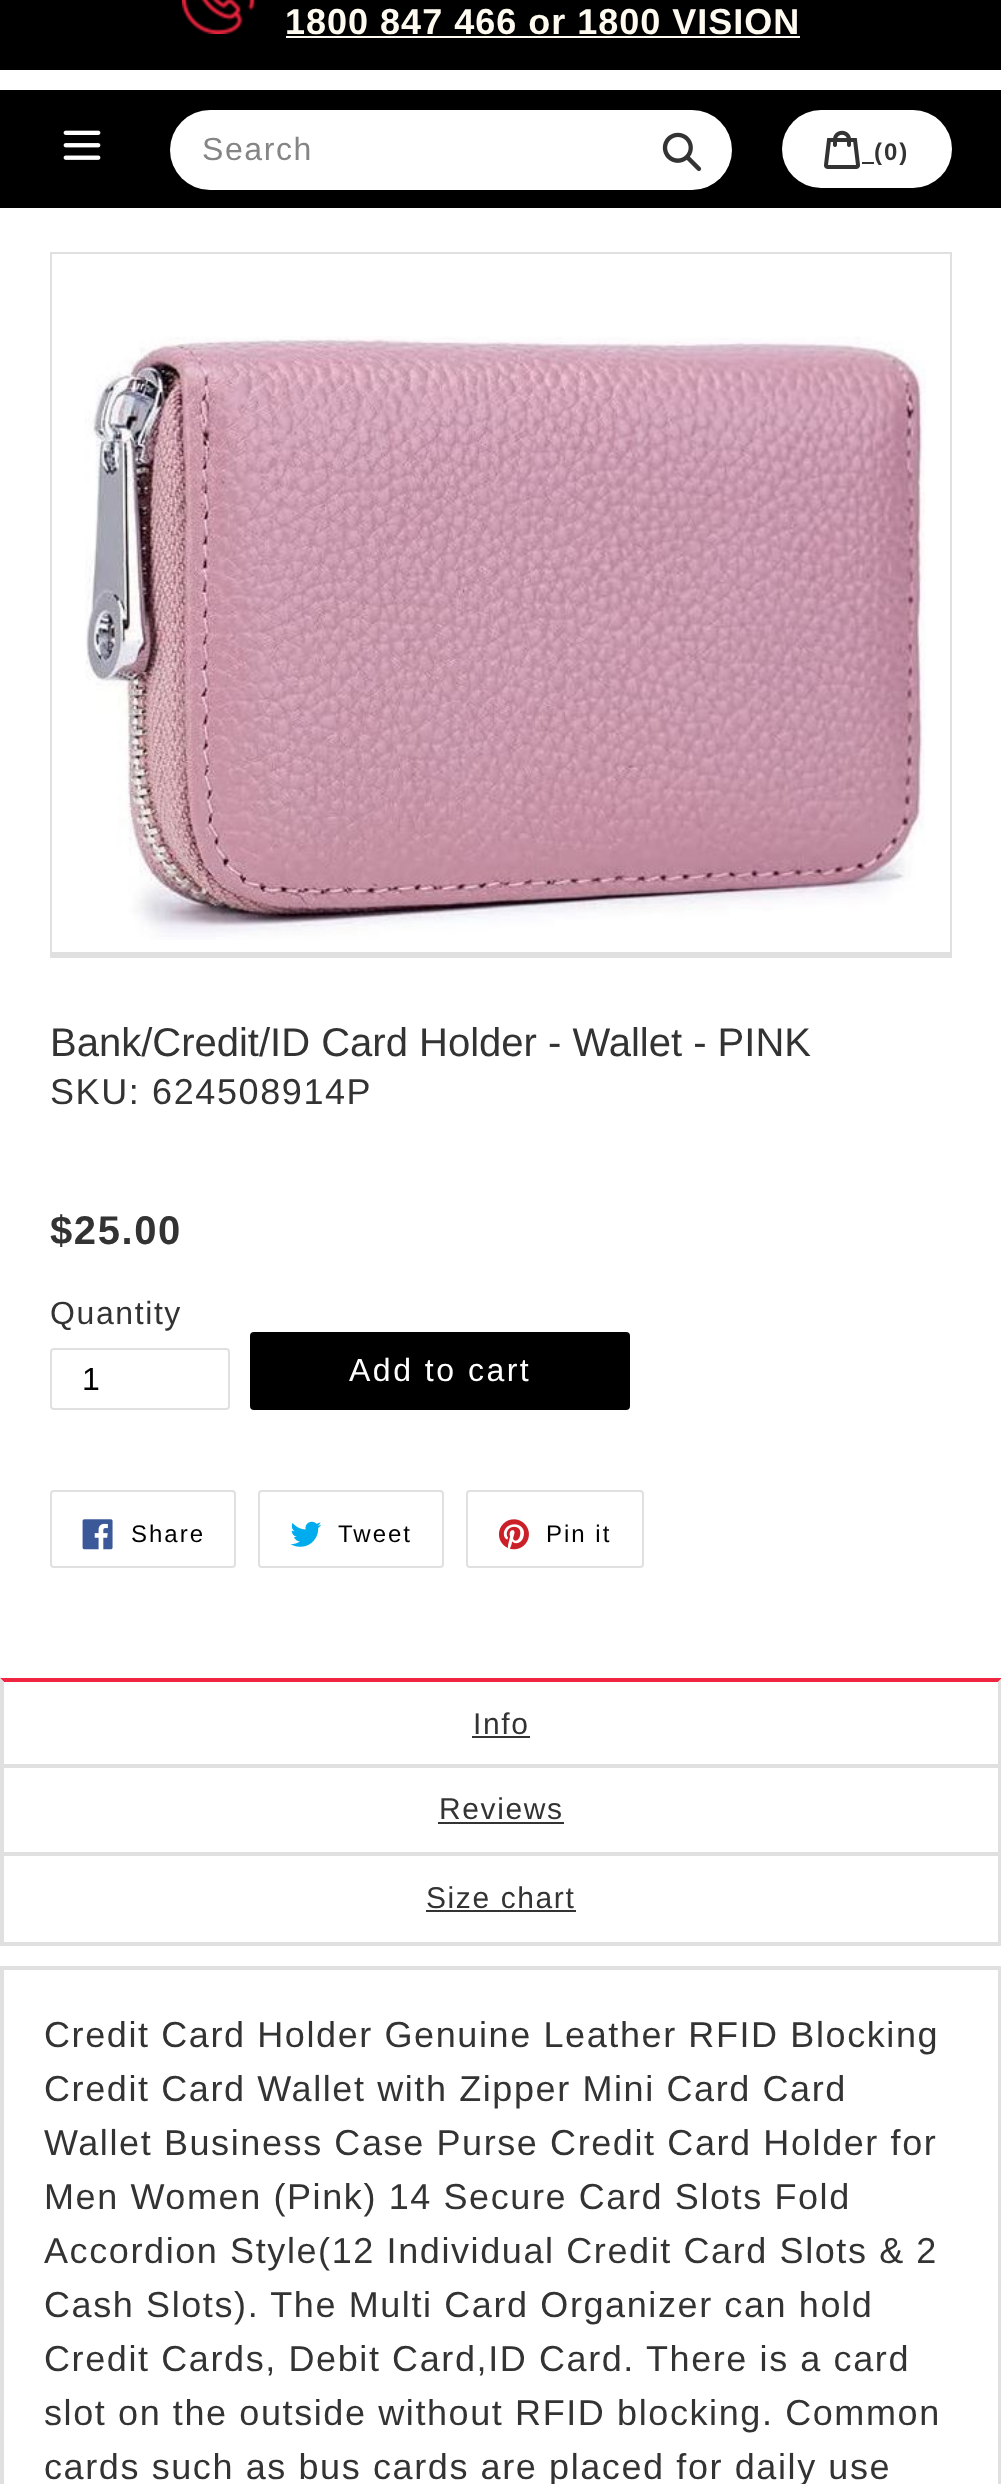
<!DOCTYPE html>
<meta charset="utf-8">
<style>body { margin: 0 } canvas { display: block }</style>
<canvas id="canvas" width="1001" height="2484"></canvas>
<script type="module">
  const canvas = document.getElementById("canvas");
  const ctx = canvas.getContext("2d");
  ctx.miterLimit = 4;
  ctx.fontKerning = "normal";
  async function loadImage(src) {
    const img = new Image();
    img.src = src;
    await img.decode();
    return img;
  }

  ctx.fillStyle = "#ffffff";
  ctx.fillRect(0, 0, 1001, 2484);
  ctx.fillStyle = "#000000";
  ctx.fillRect(0, 0, 1001, 70);
  ctx.drawImage(await loadImage("img1.png"), 182, 0, 73, 34);
  ctx.letterSpacing = "1px";
  ctx.font = "bold 36px Liberation Sans";
  ctx.fillStyle = "#fffaf0";
  ctx.fillText("1800 847 466 or 1800 VISION", 285, 34);
  ctx.fillRect(286, 36, 514, 2);
  ctx.fillStyle = "#000000";
  ctx.fillRect(0, 90, 1001, 118);
  ctx.drawImage(await loadImage("img2.png"), 63, 130, 38, 30);
  ctx.fillStyle = "#ffffff";
  ctx.beginPath();
  ctx.roundRect(170, 110, 562, 80, 40);
  ctx.fill();
  ctx.letterSpacing = "1.6px";
  ctx.font = "32px Liberation Sans";
  ctx.fillStyle = "#858585";
  ctx.fillText("Search", 202, 160);
  ctx.drawImage(await loadImage("img3.png"), 662, 132, 40, 40);
  ctx.fillStyle = "#ffffff";
  ctx.beginPath();
  ctx.roundRect(782, 110, 170, 78, 39);
  ctx.fill();
  ctx.drawImage(await loadImage("img4.png"), 824, 130, 36, 39);
  ctx.fillStyle = "#333333";
  ctx.fillRect(862, 162, 12, 2);
  ctx.letterSpacing = "2px";
  ctx.font = "bold 24px Liberation Sans";
  ctx.fillText("(0)", 874, 160);
  ctx.fillStyle = "#e0e0e0";
  ctx.fillRect(50, 252, 902, 2);
  ctx.fillRect(950, 252, 2, 706);
  ctx.fillRect(50, 952, 902, 6);
  ctx.fillRect(50, 252, 2, 706);
  ctx.drawImage(await loadImage("img5.png"), 85, 336, 841, 604);
  ctx.letterSpacing = "0px";
  ctx.font = "40px Liberation Sans";
  ctx.fillStyle = "#333333";
  ctx.fillText("Bank/Credit/ID Card Holder - Wallet - PINK", 50, 1056);
  ctx.letterSpacing = "1.6px";
  ctx.font = "36px Liberation Sans";
  ctx.fillText("SKU: 624508914P", 50, 1104);
  ctx.font = "bold 40px Liberation Sans";
  ctx.fillText("$25.00", 50, 1244);
  ctx.font = "32px Liberation Sans";
  ctx.fillText("Quantity", 50, 1324);
  ctx.beginPath();
  ctx.roundRect(51, 1349, 178, 60, 3);
  ctx.strokeStyle = "#e0e0e0";
  ctx.lineWidth = 2;
  ctx.stroke();
  ctx.fillStyle = "#000000";
  ctx.fillText("1", 82, 1390);
  ctx.beginPath();
  ctx.roundRect(250, 1332, 380, 78, 4);
  ctx.fill();
  ctx.letterSpacing = "2.5px";
  ctx.fillStyle = "#ffffff";
  ctx.fillText("Add to cart", 349, 1381);
  ctx.beginPath();
  ctx.roundRect(51, 1491, 184, 76, 3);
  ctx.stroke();
  ctx.drawImage(await loadImage("img6.png"), 82, 1519, 31, 31);
  ctx.letterSpacing = "2px";
  ctx.font = "24px Liberation Sans";
  ctx.fillStyle = "#000000";
  ctx.fillText("Share", 131, 1542);
  ctx.beginPath();
  ctx.roundRect(259, 1491, 184, 76, 3);
  ctx.stroke();
  ctx.drawImage(await loadImage("img7.png"), 290, 1521, 32, 26);
  ctx.fillText("Tweet", 338, 1542);
  ctx.beginPath();
  ctx.roundRect(467, 1491, 176, 76, 3);
  ctx.stroke();
  ctx.drawImage(await loadImage("img8.png"), 498, 1519, 31, 31);
  ctx.fillText("Pin it", 546, 1542);
  ctx.fillStyle = "#f02640";
  ctx.beginPath();
  ctx.moveTo(0, 1678);
  ctx.lineTo(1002, 1678);
  ctx.lineTo(998, 1682);
  ctx.lineTo(4, 1682);
  ctx.closePath();
  ctx.fill();
  ctx.fillStyle = "#e0e0e0";
  ctx.beginPath();
  ctx.moveTo(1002, 1678);
  ctx.lineTo(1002, 1768);
  ctx.lineTo(998, 1768);
  ctx.lineTo(998, 1682);
  ctx.closePath();
  ctx.fill();
  ctx.beginPath();
  ctx.moveTo(0, 1768);
  ctx.lineTo(0, 1678);
  ctx.lineTo(4, 1682);
  ctx.lineTo(4, 1768);
  ctx.closePath();
  ctx.fill();
  ctx.letterSpacing = "1.6px";
  ctx.font = "30px Liberation Sans";
  ctx.fillStyle = "#333333";
  ctx.fillText("Info", 473, 1734);
  ctx.fillRect(472, 1736, 58, 2);
  ctx.lineWidth = 4;
  ctx.strokeRect(2, 1766, 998, 88);
  ctx.fillText("Reviews", 439, 1819);
  ctx.fillRect(438, 1822, 126, 2);
  ctx.strokeRect(2, 1854, 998, 90);
  ctx.fillText("Size chart", 426, 1908);
  ctx.fillRect(426, 1910, 150, 2);
  ctx.strokeRect(2, 1968, 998, 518);
  ctx.font = "36px Liberation Sans";
  ctx.fillText("Credit Card Holder Genuine Leather RFID Blocking", 44, 2047);
  ctx.fillText("Credit Card Wallet with Zipper Mini Card Card", 44, 2101);
  ctx.fillText("Wallet Business Case Purse Credit Card Holder for", 44, 2155);
  ctx.fillText("Men Women (Pink) 14 Secure Card Slots Fold", 44, 2209);
  ctx.fillText("Accordion Style(12 Individual Credit Card Slots & 2", 44, 2263);
  ctx.fillText("Cash Slots). The Multi Card Organizer can hold", 44, 2317);
  ctx.fillText("Credit Cards, Debit Card,ID Card. There is a card", 44, 2371);
  ctx.fillText("slot on the outside without RFID blocking. Common", 44, 2425);
  ctx.fillText("cards such as bus cards are placed for daily use", 44, 2479);
</script>
